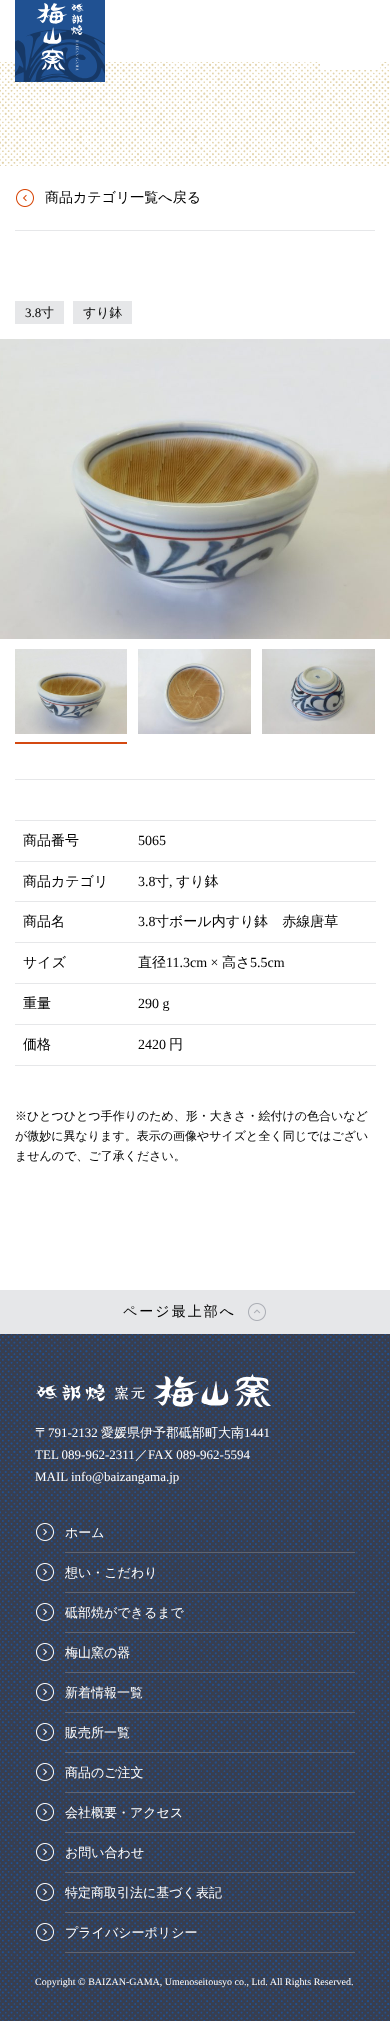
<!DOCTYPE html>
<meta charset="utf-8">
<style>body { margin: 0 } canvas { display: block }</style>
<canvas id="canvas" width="390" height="2021"></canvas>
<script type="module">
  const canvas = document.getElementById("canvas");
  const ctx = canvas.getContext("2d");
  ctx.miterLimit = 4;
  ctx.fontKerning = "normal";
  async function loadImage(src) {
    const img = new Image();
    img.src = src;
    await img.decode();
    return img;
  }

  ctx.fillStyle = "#ffffff";
  ctx.fillRect(0, 0, 390, 2021);
  ctx.drawImage(await loadImage("img2.png"), 0, 62, 390, 104);
  ctx.fillRect(320, 62, 60, 8);
  ctx.drawImage(await loadImage("img1.png"), 15, 0, 90, 82);
  ctx.drawImage(await loadImage("img3.png"), 16, 189, 18, 18);
  ctx.font = "500 14px WenQuanYi Zen Hei";
  ctx.fillStyle = "#000000";
  ctx.fillText("商品カテゴリ一覧へ戻る", 45, 202);
  ctx.fillStyle = "#e6e7e9";
  ctx.fillRect(15, 230, 360, 1);
  ctx.fillRect(15, 301, 49, 23);
  ctx.font = "13px Liberation Serif";
  ctx.fillStyle = "#000000";
  ctx.fillText("3.8", 25, 317);
  ctx.font = "500 13px WenQuanYi Zen Hei";
  ctx.fillText("寸", 41, 317);
  ctx.fillStyle = "#e6e7e9";
  ctx.fillRect(73, 301, 59, 23);
  ctx.fillStyle = "#000000";
  ctx.fillText("すり鉢", 83, 317);
  ctx.drawImage(await loadImage("img4.png"), 0, 339, 390, 300);
  ctx.drawImage(await loadImage("img5.png"), 15, 649, 112, 85);
  ctx.fillStyle = "#d44911";
  ctx.fillRect(15, 742, 112, 2);
  ctx.drawImage(await loadImage("img6.png"), 138, 649, 113, 85);
  ctx.drawImage(await loadImage("img7.png"), 262, 649, 113, 85);
  ctx.fillStyle = "#e6e7e9";
  ctx.fillRect(15, 779, 360, 1);
  ctx.fillRect(15, 820, 361, 1);
  ctx.fillRect(15, 861, 361, 1);
  ctx.font = "500 14px WenQuanYi Zen Hei";
  ctx.fillStyle = "#000000";
  ctx.fillText("商品番号", 23, 845);
  ctx.font = "14px Liberation Serif";
  ctx.fillText("5065", 138, 845);
  ctx.fillStyle = "#e6e7e9";
  ctx.fillRect(15, 901, 361, 1);
  ctx.font = "500 14px WenQuanYi Zen Hei";
  ctx.fillStyle = "#000000";
  ctx.fillText("商品カテゴリ", 23, 886);
  ctx.font = "14px Liberation Serif";
  ctx.fillText("3.8", 138, 886);
  ctx.font = "500 14px WenQuanYi Zen Hei";
  ctx.fillText("寸", 155, 886);
  ctx.font = "14px Liberation Serif";
  ctx.fillText(",", 169, 886);
  ctx.font = "500 14px WenQuanYi Zen Hei";
  ctx.fillText("すり鉢", 176, 886);
  ctx.fillStyle = "#e6e7e9";
  ctx.fillRect(15, 942, 361, 1);
  ctx.fillStyle = "#000000";
  ctx.fillText("商品名", 23, 926);
  ctx.font = "14px Liberation Serif";
  ctx.fillText("3.8", 138, 926);
  ctx.font = "500 14px WenQuanYi Zen Hei";
  ctx.fillText("寸ボール内すり鉢　赤線唐草", 155, 926);
  ctx.fillStyle = "#e6e7e9";
  ctx.fillRect(15, 983, 361, 1);
  ctx.fillStyle = "#000000";
  ctx.fillText("サイズ", 23, 967);
  ctx.fillText("直径", 138, 967);
  ctx.font = "14px Liberation Serif";
  ctx.fillText("11.3cm ×", 166, 967);
  ctx.font = "500 14px WenQuanYi Zen Hei";
  ctx.fillText("高さ", 222, 967);
  ctx.font = "14px Liberation Serif";
  ctx.fillText("5.5cm", 250, 967);
  ctx.fillStyle = "#e6e7e9";
  ctx.fillRect(15, 1024, 361, 1);
  ctx.font = "500 14px WenQuanYi Zen Hei";
  ctx.fillStyle = "#000000";
  ctx.fillText("重量", 23, 1008);
  ctx.font = "14px Liberation Serif";
  ctx.fillText("290 g", 138, 1008);
  ctx.fillStyle = "#e6e7e9";
  ctx.fillRect(15, 1065, 361, 1);
  ctx.font = "500 14px WenQuanYi Zen Hei";
  ctx.fillStyle = "#000000";
  ctx.fillText("価格", 23, 1049);
  ctx.font = "14px Liberation Serif";
  ctx.fillText("2420", 138, 1049);
  ctx.font = "500 14px WenQuanYi Zen Hei";
  ctx.fillText("円", 169, 1049);
  ctx.font = "500 12px WenQuanYi Zen Hei";
  ctx.fillText("※ひとつひとつ手作りのため、形・大きさ・絵付けの色合いなど", 15, 1120);
  ctx.fillText("が微妙に異なります。表示の画像やサイズと全く同じではござい", 15, 1140);
  ctx.fillText("ませんので、ご了承ください。", 15, 1160);
  ctx.drawImage(await loadImage("img8.png"), 0, 1334, 390, 687);
  ctx.fillStyle = "#e6e7e9";
  ctx.fillRect(0, 1290, 390, 44);
  ctx.letterSpacing = "2px";
  ctx.font = "500 14px WenQuanYi Zen Hei";
  ctx.fillStyle = "#000000";
  ctx.fillText("ページ最上部へ", 123, 1316);
  ctx.drawImage(await loadImage("img9.png"), 248, 1303, 18, 18);
  ctx.drawImage(await loadImage("img10.png"), 36, 1374, 235, 33);
  ctx.letterSpacing = "0px";
  ctx.font = "500 13px WenQuanYi Zen Hei";
  ctx.fillStyle = "#ffffff";
  ctx.fillText("〒", 35, 1437);
  ctx.font = "13px Liberation Serif";
  ctx.fillText("791-2132", 48, 1437);
  ctx.font = "500 13px WenQuanYi Zen Hei";
  ctx.fillText("愛媛県伊予郡砥部町大南", 101, 1437);
  ctx.font = "13px Liberation Serif";
  ctx.fillText("1441", 244, 1437);
  ctx.fillText("TEL 089-962-2311", 35, 1459);
  ctx.font = "500 13px WenQuanYi Zen Hei";
  ctx.fillText("／", 135, 1459);
  ctx.font = "13px Liberation Serif";
  ctx.fillText("FAX 089-962-5594", 148, 1459);
  ctx.fillText("MAIL info@baizangama.jp", 35, 1481);
  ctx.fillStyle = "#606572";
  ctx.fillRect(65, 1552, 290, 1);
  ctx.drawImage(await loadImage("img11.png"), 36, 1523, 18, 18);
  ctx.font = "500 13px WenQuanYi Zen Hei";
  ctx.fillStyle = "#ffffff";
  ctx.fillText("ホーム", 65, 1537);
  ctx.fillStyle = "#606572";
  ctx.fillRect(65, 1592, 290, 1);
  ctx.drawImage(await loadImage("img12.png"), 36, 1563, 18, 18);
  ctx.fillStyle = "#ffffff";
  ctx.fillText("想い・こだわり", 65, 1577);
  ctx.fillStyle = "#606572";
  ctx.fillRect(65, 1632, 290, 1);
  ctx.drawImage(await loadImage("img13.png"), 36, 1603, 18, 18);
  ctx.fillStyle = "#ffffff";
  ctx.fillText("砥部焼ができるまで", 65, 1617);
  ctx.fillStyle = "#606572";
  ctx.fillRect(65, 1672, 290, 1);
  ctx.drawImage(await loadImage("img14.png"), 36, 1643, 18, 18);
  ctx.fillStyle = "#ffffff";
  ctx.fillText("梅山窯の器", 65, 1657);
  ctx.fillStyle = "#606572";
  ctx.fillRect(65, 1712, 290, 1);
  ctx.drawImage(await loadImage("img15.png"), 36, 1683, 18, 18);
  ctx.fillStyle = "#ffffff";
  ctx.fillText("新着情報一覧", 65, 1697);
  ctx.fillStyle = "#606572";
  ctx.fillRect(65, 1752, 290, 1);
  ctx.drawImage(await loadImage("img16.png"), 36, 1723, 18, 18);
  ctx.fillStyle = "#ffffff";
  ctx.fillText("販売所一覧", 65, 1737);
  ctx.fillStyle = "#606572";
  ctx.fillRect(65, 1792, 290, 1);
  ctx.drawImage(await loadImage("img17.png"), 36, 1763, 18, 18);
  ctx.fillStyle = "#ffffff";
  ctx.fillText("商品のご注文", 65, 1777);
  ctx.fillStyle = "#606572";
  ctx.fillRect(65, 1832, 290, 1);
  ctx.drawImage(await loadImage("img18.png"), 36, 1803, 18, 18);
  ctx.fillStyle = "#ffffff";
  ctx.fillText("会社概要・アクセス", 65, 1817);
  ctx.fillStyle = "#606572";
  ctx.fillRect(65, 1872, 290, 1);
  ctx.drawImage(await loadImage("img19.png"), 36, 1843, 18, 18);
  ctx.fillStyle = "#ffffff";
  ctx.fillText("お問い合わせ", 65, 1857);
  ctx.fillStyle = "#606572";
  ctx.fillRect(65, 1912, 290, 1);
  ctx.drawImage(await loadImage("img20.png"), 36, 1883, 18, 18);
  ctx.fillStyle = "#ffffff";
  ctx.fillText("特定商取引法に基づく表記", 65, 1897);
  ctx.fillStyle = "#606572";
  ctx.fillRect(65, 1952, 290, 1);
  ctx.drawImage(await loadImage("img21.png"), 36, 1923, 18, 18);
  ctx.fillStyle = "#ffffff";
  ctx.fillText("プライバシーポリシー", 65, 1937);
  ctx.font = "10px Liberation Serif";
  ctx.fillText("Copyright © BAIZAN-GAMA, Umenoseitousyo co., Ltd. All Rights Reserved.", 35, 1985);
</script>
